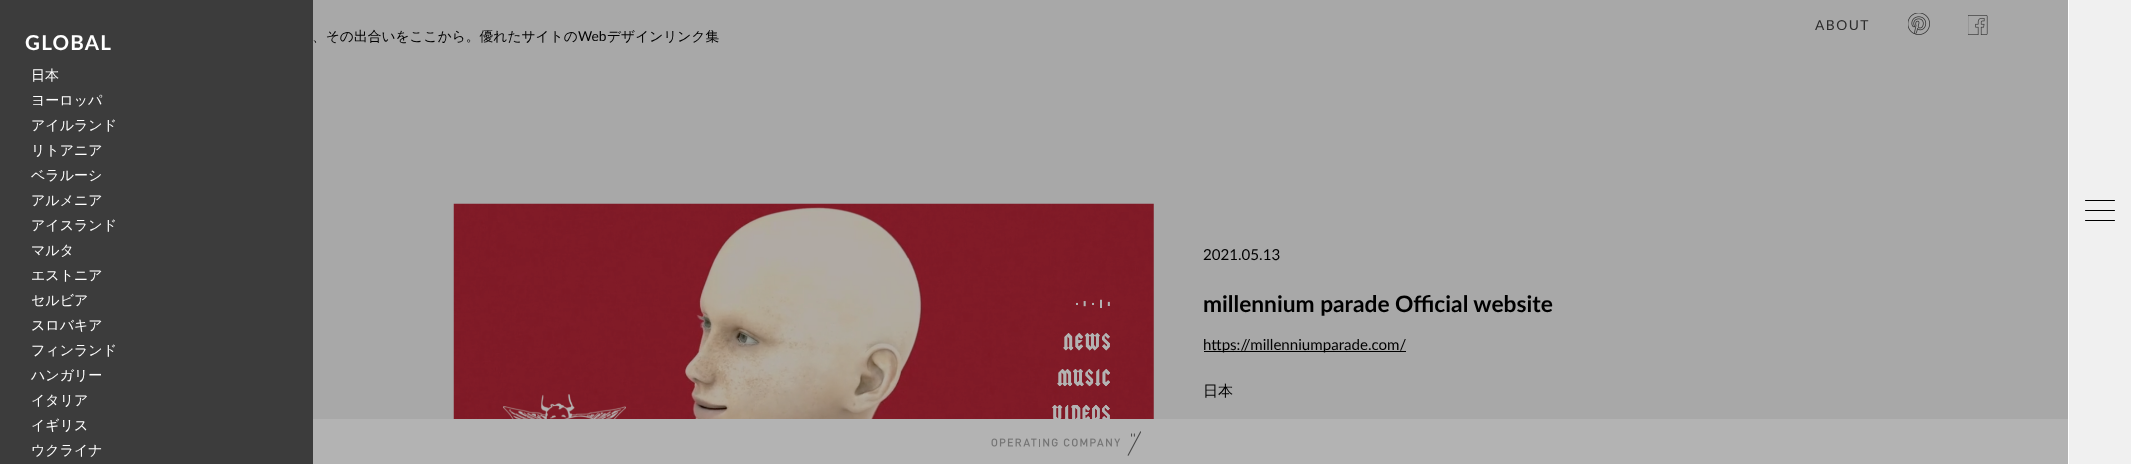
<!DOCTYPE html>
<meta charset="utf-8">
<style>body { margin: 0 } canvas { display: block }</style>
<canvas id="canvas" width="2131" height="464"></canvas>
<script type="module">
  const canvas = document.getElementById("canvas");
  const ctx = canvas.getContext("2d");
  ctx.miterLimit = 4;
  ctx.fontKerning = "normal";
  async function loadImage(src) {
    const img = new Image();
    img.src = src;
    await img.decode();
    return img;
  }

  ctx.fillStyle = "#a8a8a8";
  ctx.fillRect(0, 0, 2131, 464);
  ctx.fillStyle = "#3c3c3c";
  ctx.fillRect(0, 0, 313, 464);
  ctx.letterSpacing = "1.25px";
  ctx.font = "bold 20.5px Lato";
  ctx.fillStyle = "#ffffff";
  ctx.fillText("GLOBAL", 25, 50);
  ctx.letterSpacing = "0px";
  ctx.font = "500 14px WenQuanYi Zen Hei";
  ctx.fillText("日本", 31, 80);
  ctx.fillText("ヨーロッパ", 31, 105);
  ctx.fillText("アイルランド", 31, 130);
  ctx.fillText("リトアニア", 31, 155);
  ctx.fillText("ベラルーシ", 31, 180);
  ctx.fillText("アルメニア", 31, 205);
  ctx.fillText("アイスランド", 31, 230);
  ctx.fillText("マルタ", 31, 255);
  ctx.fillText("エストニア", 31, 280);
  ctx.fillText("セルビア", 31, 305);
  ctx.fillText("スロバキア", 31, 330);
  ctx.fillText("フィンランド", 31, 355);
  ctx.fillText("ハンガリー", 31, 380);
  ctx.fillText("イタリア", 31, 405);
  ctx.fillText("イギリス", 31, 430);
  ctx.fillText("ウクライナ", 31, 455);
  ctx.letterSpacing = "1.5px";
  ctx.font = "13.75px Lato";
  ctx.fillStyle = "#2b2b2b";
  ctx.fillText("ABOUT", 1815, 30);
  ctx.drawImage(await loadImage("img1.png"), 1908, 13, 22, 22);
  ctx.drawImage(await loadImage("img2.png"), 1968, 15, 20, 20);
  ctx.letterSpacing = "0px";
  ctx.font = "500 13.75px WenQuanYi Zen Hei";
  ctx.fillStyle = "#000000";
  ctx.fillText("、その出合いをここから。優れたサイトの", 312, 41);
  ctx.font = "13.75px Lato";
  ctx.fillText("Web", 578, 41);
  ctx.font = "500 13.75px WenQuanYi Zen Hei";
  ctx.fillText("デザインリンク集", 607, 41);
  ctx.fillStyle = "#f0f0f0";
  ctx.fillRect(2069, 0, 62, 464);
  ctx.fillStyle = "#ffffff";
  ctx.fillRect(2068, 0, 1, 464);
  ctx.fillStyle = "#000000";
  ctx.beginPath();
  ctx.roundRect(2085, 200, 30, 1, 0.5);
  ctx.fill();
  ctx.beginPath();
  ctx.roundRect(2085, 210, 30, 1, 0.5);
  ctx.fill();
  ctx.beginPath();
  ctx.roundRect(2085, 220, 30, 1, 0.5);
  ctx.fill();
  ctx.drawImage(await loadImage("img3.png"), 453, 203, 701, 216);
  ctx.font = "15.1px Lato";
  ctx.fillText("2021.05.13", 1203, 260);
  ctx.font = "bold 22.75px Lato";
  ctx.fillText("millennium parade Official website", 1203, 312);
  ctx.fillRect(1204, 351, 202, 1);
  ctx.font = "15.1px Lato";
  ctx.fillText("https://millenniumparade.com/", 1203, 350);
  ctx.font = "500 15.1px WenQuanYi Zen Hei";
  ctx.fillText("日本", 1203, 396);
  ctx.fillStyle = "#b3b3b3";
  ctx.fillRect(313, 419, 1755, 45);
  ctx.drawImage(await loadImage("img4.png"), 991, 431, 150, 25);
</script>
